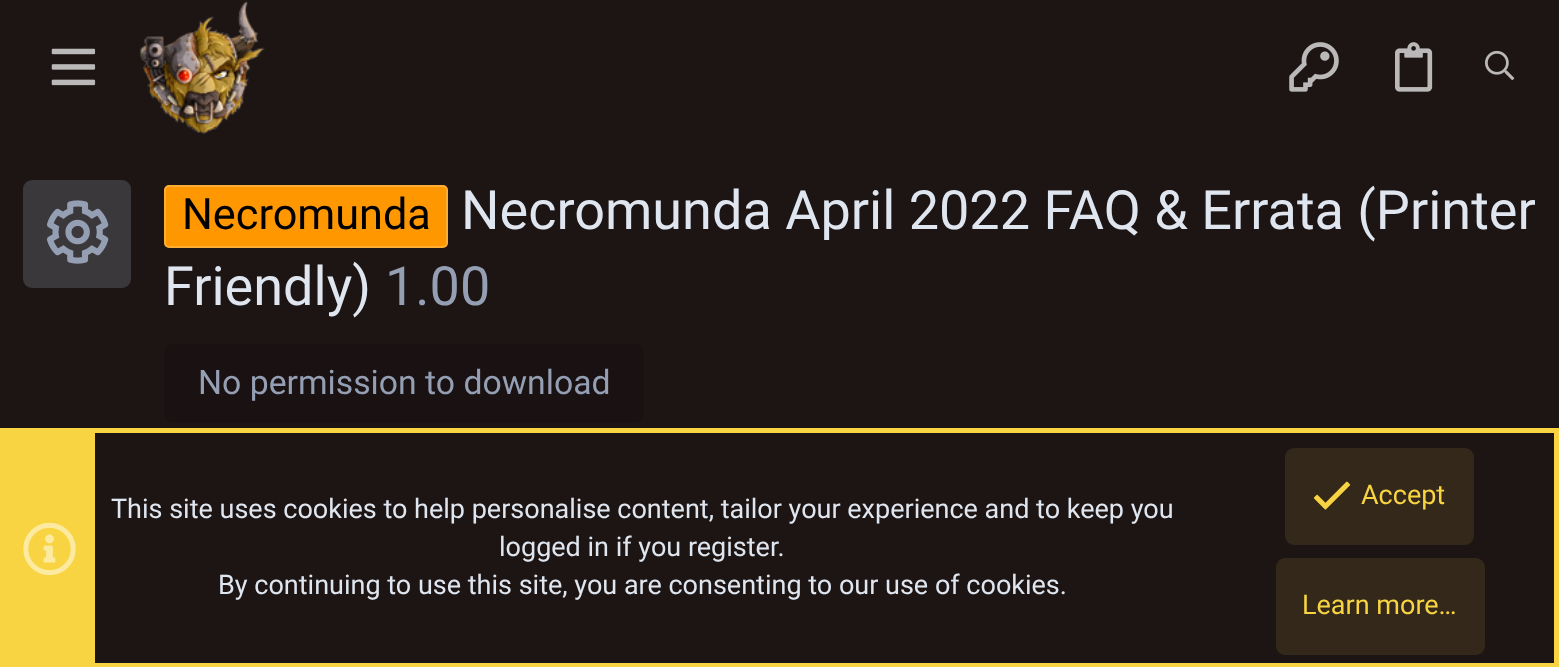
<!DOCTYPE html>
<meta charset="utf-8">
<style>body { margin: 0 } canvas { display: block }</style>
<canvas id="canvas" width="1559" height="667"></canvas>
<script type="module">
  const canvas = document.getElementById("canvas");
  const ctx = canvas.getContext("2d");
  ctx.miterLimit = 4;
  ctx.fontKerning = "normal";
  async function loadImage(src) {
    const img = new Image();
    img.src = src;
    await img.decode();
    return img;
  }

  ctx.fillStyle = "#1d1514";
  ctx.fillRect(0, 0, 1559, 667);
  ctx.drawImage(await loadImage("img1.png"), 51, 48, 45, 38);
  ctx.drawImage(await loadImage("img2.png"), 140, 1, 125, 133);
  ctx.drawImage(await loadImage("img3.png"), 1289, 42, 50, 50);
  ctx.drawImage(await loadImage("img4.png"), 1395, 42, 38, 50);
  ctx.drawImage(await loadImage("img5.png"), 1485, 50, 30, 31);
  ctx.fillStyle = "#3b383c";
  ctx.beginPath();
  ctx.roundRect(23, 180, 108, 108, 9);
  ctx.fill();
  ctx.drawImage(await loadImage("img6.png"), 47, 200, 62, 64);
  ctx.fillStyle = "#ff9800";
  ctx.beginPath();
  ctx.roundRect(165, 186, 282, 61, 4);
  ctx.fill();
  ctx.strokeStyle = "#ffad33";
  ctx.lineWidth = 2;
  ctx.stroke();
  ctx.font = "43.25px Roboto";
  ctx.fillStyle = "#000000";
  ctx.fillText("Necromunda", 182, 229);
  ctx.font = "54px Roboto";
  ctx.fillStyle = "#e0e6f0";
  ctx.fillText("Necromunda April 2022 FAQ & Errata (Printer", 461, 229);
  ctx.fillText("Friendly)", 164, 305);
  ctx.fillStyle = "#959fb4";
  ctx.fillText("1.00", 385, 305);
  ctx.fillStyle = "#1a1212";
  ctx.beginPath();
  ctx.roundRect(164, 344, 480, 79, 9);
  ctx.fill();
  ctx.font = "33.75px Roboto";
  ctx.fillStyle = "#959fb4";
  ctx.fillText("No permission to download", 198, 394);
  ctx.strokeStyle = "#f8d442";
  ctx.lineWidth = 5;
  ctx.strokeRect(2.5, 430.5, 1554, 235);
  ctx.fillStyle = "#f8d442";
  ctx.fillRect(5, 433, 90, 230);
  ctx.drawImage(await loadImage("img7.png"), 23, 522, 53, 54);
  ctx.font = "27px Roboto";
  ctx.fillStyle = "#e0e6f0";
  ctx.fillText("This site uses cookies to help personalise content, tailor your experience and to keep you", 111, 518);
  ctx.fillText("logged in if you register.", 499, 556);
  ctx.fillText("By continuing to use this site, you are consenting to our use of cookies.", 218, 594);
  ctx.fillStyle = "#332819";
  ctx.beginPath();
  ctx.roundRect(1285, 448, 189, 97, 9);
  ctx.fill();
  ctx.drawImage(await loadImage("img8.png"), 1313, 481, 38, 29);
  ctx.fillStyle = "#f8d442";
  ctx.fillText("Accept", 1361, 504);
  ctx.fillStyle = "#332819";
  ctx.beginPath();
  ctx.roundRect(1276, 558, 209, 97, 9);
  ctx.fill();
  ctx.fillStyle = "#f8d442";
  ctx.fillText("Learn more…", 1302, 614);
</script>
